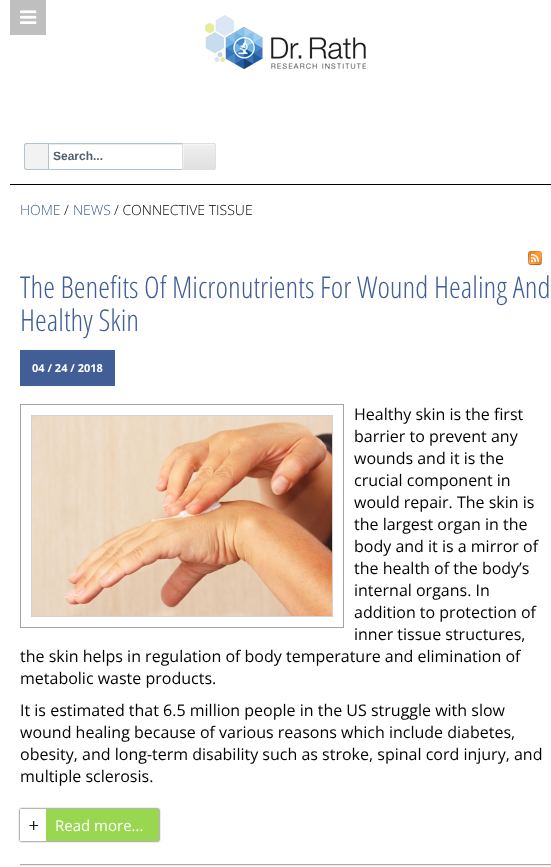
<!DOCTYPE html>
<meta charset="utf-8">
<style>body { margin: 0 } canvas { display: block }</style>
<canvas id="canvas" width="551" height="867"></canvas>
<script type="module">
  const canvas = document.getElementById("canvas");
  const ctx = canvas.getContext("2d");
  ctx.miterLimit = 4;
  ctx.fontKerning = "normal";
  async function loadImage(src) {
    const img = new Image();
    img.src = src;
    await img.decode();
    return img;
  }
  let gradient;

  ctx.fillStyle = "#ffffff";
  ctx.fillRect(0, 0, 551, 867);
  ctx.fillStyle = "#000000";
  ctx.fillRect(10, 184, 541, 1);
  ctx.fillStyle = "#bfbfbf";
  ctx.fillRect(10, 0, 36, 35);
  ctx.drawImage(await loadImage("img1.png"), 20, 10, 17, 14);
  ctx.drawImage(await loadImage("img2.png"), 205, 15, 161, 54);
  ctx.fillStyle = "#ececec";
  ctx.beginPath();
  ctx.moveTo(27, 145);
  ctx.lineTo(213, 145);
  ctx.bezierCurveTo(215, 145, 216, 146, 216, 147);
  ctx.lineTo(215, 145);
  ctx.lineTo(214, 144);
  ctx.lineTo(27, 144);
  ctx.bezierCurveTo(25, 144, 25, 146, 25, 147);
  ctx.bezierCurveTo(25, 146, 26, 145, 27, 145);
  ctx.closePath();
  ctx.fill();
  ctx.fillStyle = "#b2c4d4";
  ctx.beginPath();
  ctx.moveTo(27, 143);
  ctx.lineTo(213, 143);
  ctx.bezierCurveTo(215, 143, 216, 144, 216, 146);
  ctx.lineTo(216, 167);
  ctx.bezierCurveTo(216, 169, 215, 170, 213, 170);
  ctx.lineTo(27, 170);
  ctx.bezierCurveTo(25, 170, 24, 169, 24, 167);
  ctx.lineTo(24, 146);
  ctx.bezierCurveTo(24, 144, 25, 143, 27, 143);
  ctx.closePath();
  ctx.moveTo(27, 144);
  ctx.lineTo(213, 144);
  ctx.bezierCurveTo(215, 144, 216, 145, 216, 146);
  ctx.lineTo(216, 167);
  ctx.bezierCurveTo(216, 168, 215, 169, 213, 169);
  ctx.lineTo(27, 169);
  ctx.bezierCurveTo(26, 169, 25, 168, 25, 167);
  ctx.lineTo(25, 146);
  ctx.bezierCurveTo(25, 145, 26, 144, 27, 144);
  ctx.closePath();
  ctx.fill("evenodd");
  ctx.fillStyle = "#f2f2f2";
  ctx.beginPath();
  ctx.roundRect(24.5, 143.5, 24, 26, [2.5, 0, 0, 2.5]);
  ctx.fill();
  ctx.strokeStyle = "#b2c4d4";
  ctx.stroke();
  ctx.font = "bold 12px Arimo";
  ctx.fillStyle = "#4e6170";
  ctx.fillText("Search...", 53, 160);
  ctx.save();
  ctx.beginPath();
  ctx.roundRect(182, 143, 34, 27, [0, 3, 3, 0]);
  ctx.clip();
  gradient = ctx.createLinearGradient(199, 144, 199, 169);
  gradient.addColorStop(0, "#efefef");
  gradient.addColorStop(1, "#e0e0e0");
  ctx.fillStyle = gradient;
  ctx.fillRect(183, 144, 33, 25);
  ctx.restore();
  ctx.fillStyle = "rgba(255, 255, 255, 0.4)";
  ctx.beginPath();
  ctx.moveTo(184, 145);
  ctx.lineTo(215, 145);
  ctx.lineTo(213.5, 144);
  ctx.lineTo(183, 144);
  ctx.lineTo(183, 169);
  ctx.lineTo(184, 169);
  ctx.closePath();
  ctx.fill();
  ctx.beginPath();
  ctx.roundRect(182.5, 143.5, 33, 26, [0, 2.5, 2.5, 0]);
  ctx.strokeStyle = "#e0e0e0";
  ctx.stroke();
  ctx.font = "300 14px Open Sans";
  ctx.fillStyle = "#415e97";
  ctx.fillText("HOME", 20, 215);
  ctx.fillStyle = "#000000";
  ctx.fillText("/", 64, 215);
  ctx.fillStyle = "#415e97";
  ctx.fillText("NEWS", 73, 215);
  ctx.fillStyle = "#000000";
  ctx.fillText("/ CONNECTIVE TISSUE", 114, 215);
  ctx.drawImage(await loadImage("img3.png"), 528, 251, 14, 14);
  ctx.fillStyle = "#f1f1f1";
  ctx.fillRect(20, 865, 531, 1);
  ctx.fillStyle = "#aaaaaa";
  ctx.fillRect(20, 864, 531, 1);
  ctx.font = "300 30px Open Sans Condensed";
  ctx.fillStyle = "#415e97";
  ctx.fillText("The Benefits Of Micronutrients For Wound Healing And", 20, 298);
  ctx.fillText("Healthy Skin", 20, 331);
  ctx.fillRect(20, 350, 95, 36);
  ctx.font = "bold 11px Open Sans";
  ctx.fillStyle = "#ffffff";
  ctx.fillText("04 / 24 / 2018", 32, 372);
  ctx.strokeStyle = "#a4a4a4";
  ctx.strokeRect(20.5, 404.5, 323, 223);
  ctx.strokeStyle = "#d2d2d2";
  ctx.strokeRect(31.5, 415.5, 301, 201);
  ctx.drawImage(await loadImage("img4.png"), 32, 416, 300, 200);
  ctx.font = "16px Open Sans";
  ctx.fillStyle = "#000000";
  ctx.fillText("Healthy skin is the first", 354, 420);
  ctx.fillText("barrier to prevent any", 354, 442);
  ctx.fillText("wounds and it is the", 354, 464);
  ctx.fillText("crucial component in", 354, 486);
  ctx.fillText("would repair. The skin is", 354, 508);
  ctx.fillText("the largest organ in the", 354, 530);
  ctx.fillText("body and it is a mirror of", 354, 552);
  ctx.fillText("the health of the body’s", 354, 574);
  ctx.fillText("internal organs. In", 354, 596);
  ctx.fillText("addition to protection of", 354, 618);
  ctx.fillText("inner tissue structures,", 354, 640);
  ctx.fillText("the skin helps in regulation of body temperature and elimination of", 20, 662);
  ctx.fillText("metabolic waste products.", 20, 684);
  ctx.fillText("It is estimated that 6.5 million people in the US struggle with slow", 20, 716);
  ctx.fillText("wound healing because of various reasons which include diabetes,", 20, 738);
  ctx.fillText("obesity, and long-term disability such as stroke, spinal cord injury, and", 20, 760);
  ctx.fillText("multiple sclerosis.", 20, 782);
  ctx.fillStyle = "#222222";
  ctx.filter = "blur(1px)";
  ctx.beginPath();
  ctx.rect(20, 809, 139, 32);
  ctx.fill();
  ctx.filter = "none";
  ctx.fillStyle = "#99d751";
  ctx.fillRect(46, 809, 113, 32);
  ctx.drawImage(await loadImage("img5.png"), 20, 809, 26, 32);
  ctx.font = "15px Open Sans";
  ctx.fillStyle = "#ffffff";
  ctx.fillText("Read more...", 55, 831);
</script>
